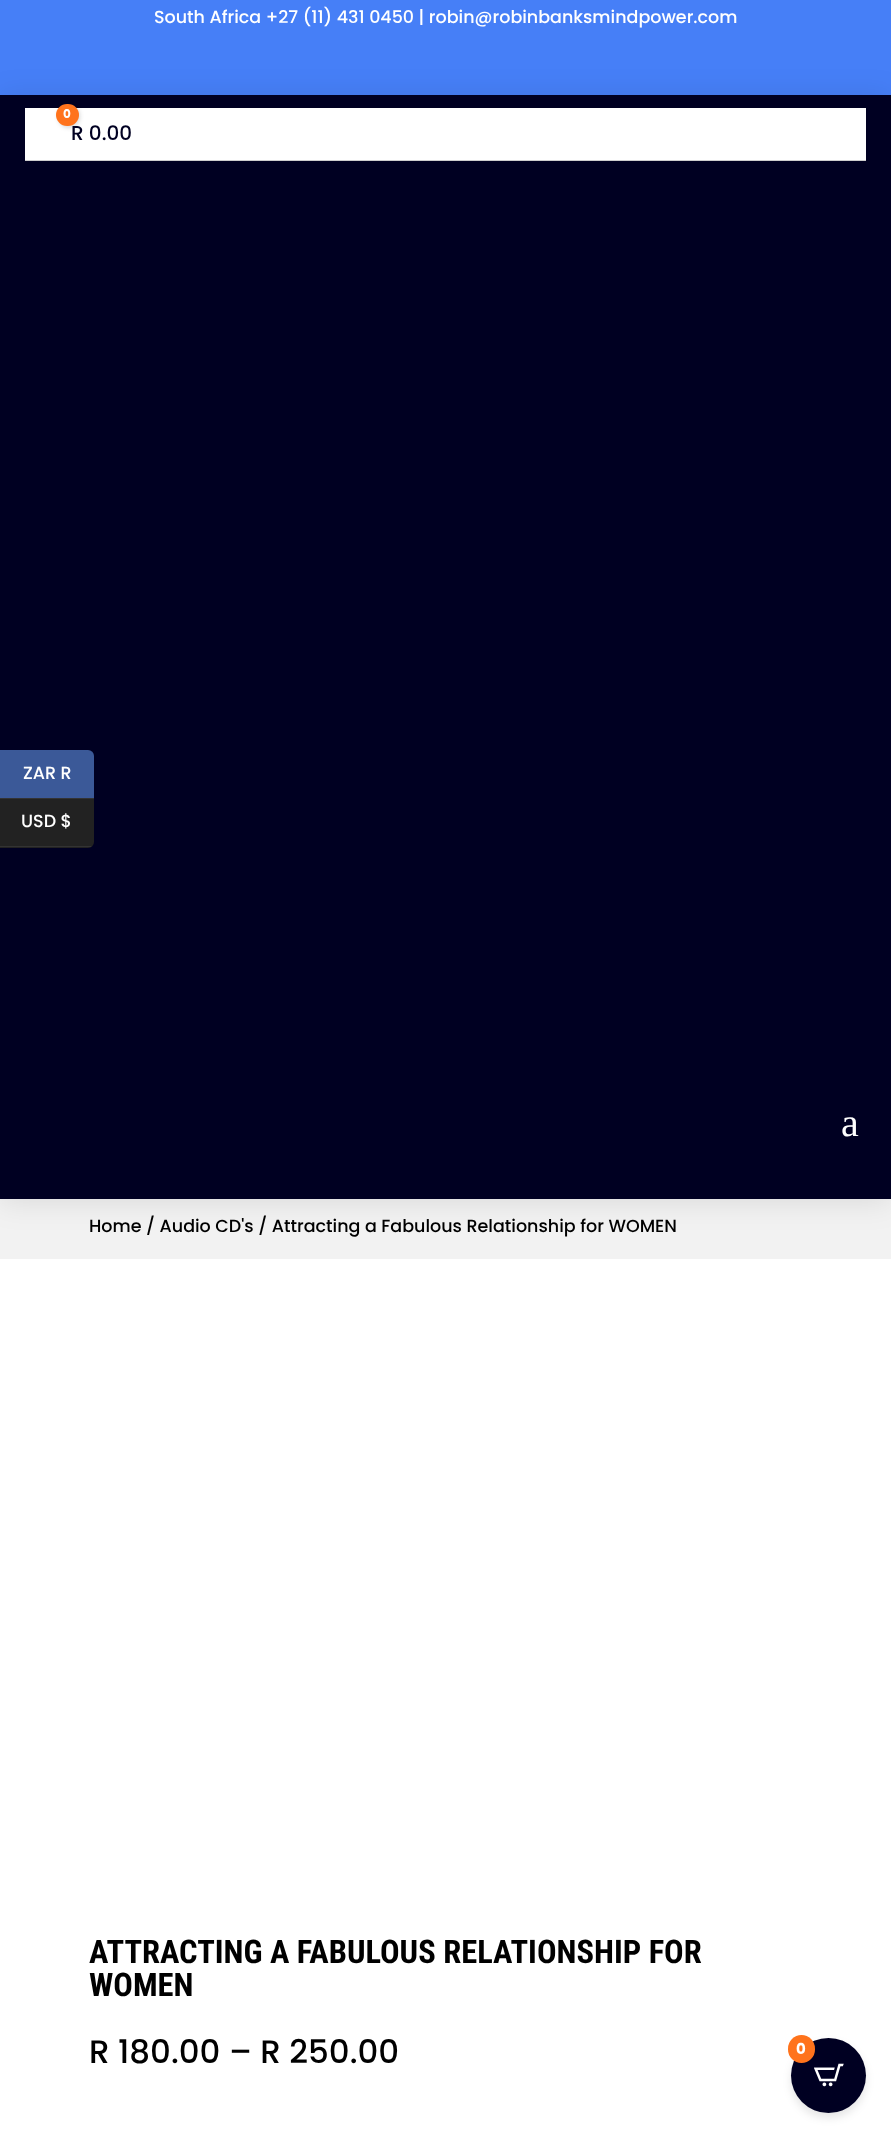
<!DOCTYPE html>
<meta charset="utf-8">
<style>body { margin: 0 } canvas { display: block }</style>
<canvas id="canvas" width="891" height="2137"></canvas>
<script type="module">
  const canvas = document.getElementById("canvas");
  const ctx = canvas.getContext("2d");
  ctx.miterLimit = 4;
  ctx.fontKerning = "normal";
  async function loadImage(src) {
    const img = new Image();
    img.src = src;
    await img.decode();
    return img;
  }

  ctx.fillStyle = "#ffffff";
  ctx.fillRect(0, 0, 891, 2137);
  ctx.fillStyle = "#467ff7";
  ctx.fillRect(0, 0, 891, 95);
  ctx.fillStyle = "#f2f2f2";
  ctx.fillRect(0, 1199, 891, 60);
  ctx.fillStyle = "rgba(0, 0, 0, 0.1)";
  ctx.filter = "blur(15.5px)";
  ctx.beginPath();
  ctx.rect(0, 98, 891, 1103);
  ctx.fill();
  ctx.filter = "none";
  ctx.fillStyle = "#000022";
  ctx.fillRect(0, 95, 891, 1104);
  ctx.fillStyle = "#3b5998";
  ctx.beginPath();
  ctx.roundRect(0, 750, 94, 49, [0, 6, 0, 0]);
  ctx.fill();
  ctx.fillStyle = "#333333";
  ctx.fillRect(0, 798, 94, 1);
  ctx.font = "500 17.5px Poppins";
  ctx.fillStyle = "#ffffff";
  ctx.fillText("ZAR R", 23, 779);
  ctx.fillStyle = "#222222";
  ctx.beginPath();
  ctx.roundRect(0, 799, 94, 49, [0, 0, 6, 0]);
  ctx.fill();
  ctx.fillStyle = "#333333";
  ctx.fillRect(0, 846, 91, 1);
  ctx.fillStyle = "#ffffff";
  ctx.fillText("USD $", 21, 827);
  ctx.fillText("South Africa +27 (11) 431 0450 | robin@robinbanksmindpower.com", 154, 23);
  ctx.fillRect(25, 108, 841, 52);
  ctx.fillStyle = "rgba(0, 0, 0, 0.15)";
  ctx.filter = "blur(2px)";
  ctx.beginPath();
  ctx.roundRect(58, 105, 22, 23, 11);
  ctx.fill();
  ctx.filter = "none";
  ctx.font = "500 20px Poppins";
  ctx.fillStyle = "#000022";
  ctx.fillText("R 0.00", 71, 140);
  ctx.fillStyle = "#ff731c";
  ctx.beginPath();
  ctx.roundRect(56, 104, 23, 22, 11);
  ctx.fill();
  ctx.font = "bold 12px Poppins";
  ctx.fillStyle = "#ffffff";
  ctx.fillText("0", 63, 118);
  ctx.fillStyle = "#cecece";
  ctx.fillRect(25, 160, 841, 1);
  ctx.font = "40px Liberation Serif";
  ctx.fillStyle = "#ffffff";
  ctx.fillText("a", 841, 1136);
  ctx.font = "500 17.5px Poppins";
  ctx.fillStyle = "#000000";
  ctx.fillText("Home / Audio CD's / Attracting a Fabulous Relationship for WOMEN", 89, 1232);
  ctx.font = "bold 32.5px Roboto Condensed";
  ctx.fillText("ATTRACTING A FABULOUS RELATIONSHIP FOR", 89, 1963);
  ctx.fillText("WOMEN", 89, 1996);
  ctx.font = "500 32.5px Poppins";
  ctx.fillText("R 180.00 – R 250.00", 89, 2063);
  ctx.fillStyle = "rgba(0, 0, 0, 0.1)";
  ctx.filter = "blur(4.5px)";
  ctx.beginPath();
  ctx.roundRect(791, 2043, 75, 75, 37.5);
  ctx.fill();
  ctx.filter = "none";
  ctx.fillStyle = "#000022";
  ctx.beginPath();
  ctx.arc(828.5, 2075.5, 37.5, 0, Math.PI * 2);
  ctx.fill();
  ctx.fillStyle = "#ff731c";
  ctx.beginPath();
  ctx.roundRect(788, 2035, 27, 28, 13.5);
  ctx.fill();
  ctx.font = "bold 15px Poppins";
  ctx.fillStyle = "#ffffff";
  ctx.fillText("0", 796, 2054);
  ctx.drawImage(await loadImage("img1.png"), 814, 2063, 30, 24);
</script>
